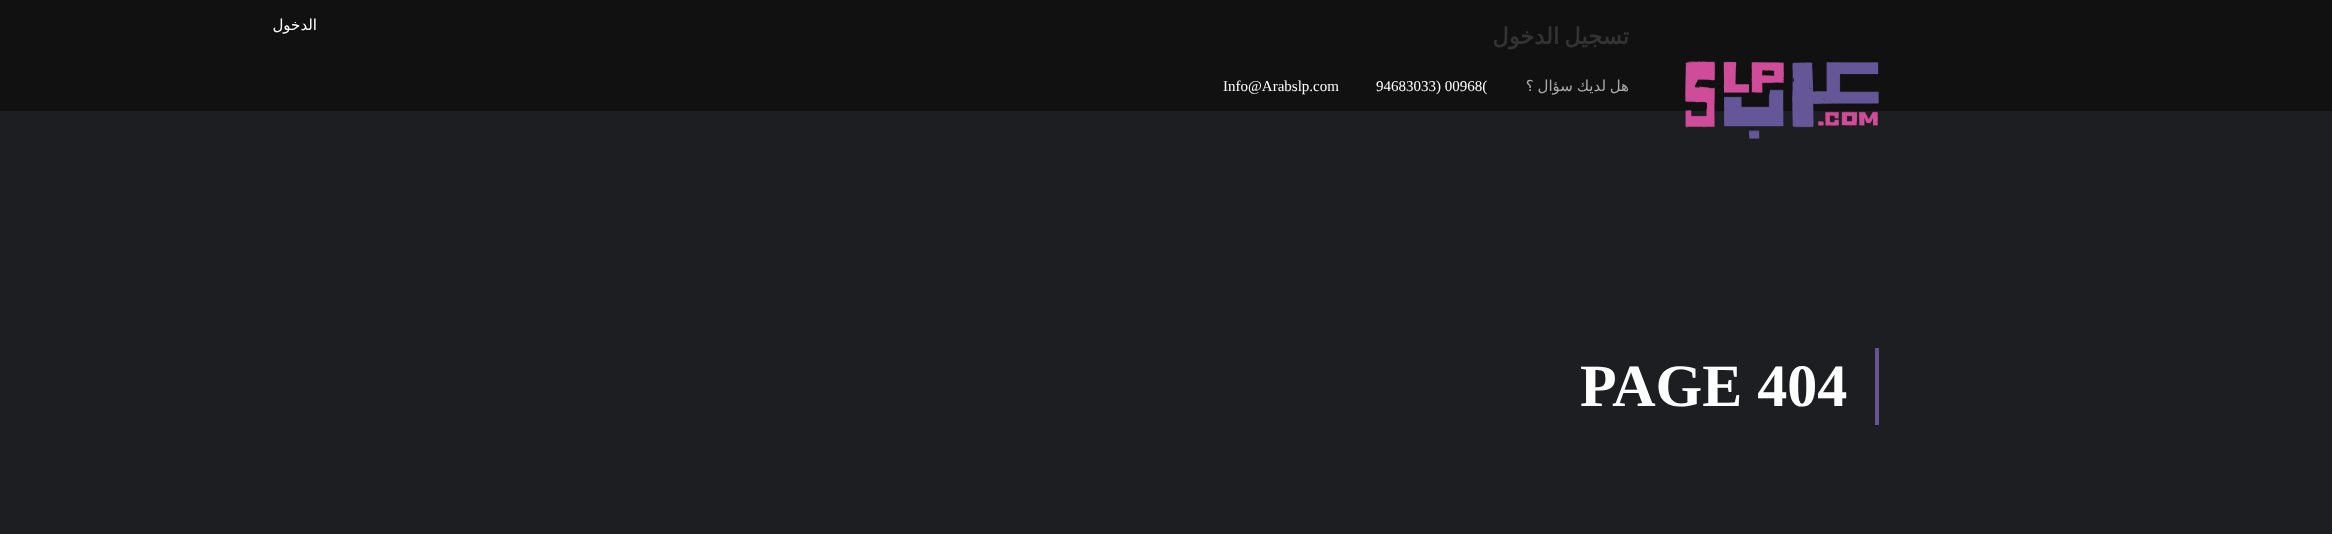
<!DOCTYPE html>
<meta charset="utf-8">
<style>body { margin: 0 } canvas { display: block }</style>
<canvas id="canvas" width="2332" height="534"></canvas>
<script type="module">
  const canvas = document.getElementById("canvas");
  const ctx = canvas.getContext("2d");
  ctx.miterLimit = 4;
  ctx.fontKerning = "normal";
  async function loadImage(src) {
    const img = new Image();
    img.src = src;
    await img.decode();
    return img;
  }

  ctx.fillStyle = "#1c1e22";
  ctx.fillRect(0, 0, 2332, 534);
  ctx.fillStyle = "#111111";
  ctx.fillRect(0, 0, 2332, 111);
  ctx.direction = "rtl";
  ctx.font = "15px DejaVu Sans";
  ctx.fillStyle = "#ffffff";
  ctx.fillText("الدخول", 317, 30);
  ctx.wordSpacing = "-2px";
  ctx.font = "bold 22.5px DejaVu Sans";
  ctx.fillStyle = "#333333";
  ctx.fillText("تسجيل الدخول", 1629, 44);
  ctx.wordSpacing = "0px";
  ctx.direction = "ltr";
  ctx.font = "15px Liberation Serif";
  ctx.fillStyle = "#ffffff";
  ctx.fillText("Info@Arabslp.com", 1223, 91);
  ctx.fillText("94683033) 00968(", 1376, 91);
  ctx.wordSpacing = "-1px";
  ctx.direction = "rtl";
  ctx.font = "15px DejaVu Sans";
  ctx.fillStyle = "#ababab";
  ctx.fillText("هل لديك سؤال ؟", 1629, 91);
  ctx.drawImage(await loadImage("img1.png"), 1685, 61, 194, 78);
  ctx.wordSpacing = "0px";
  ctx.direction = "ltr";
  ctx.font = "bold 60px Liberation Serif";
  ctx.fillStyle = "#ffffff";
  ctx.fillText("PAGE 404", 1580, 406);
  ctx.fillStyle = "#695293";
  ctx.fillRect(1875, 348, 4, 77);
</script>
